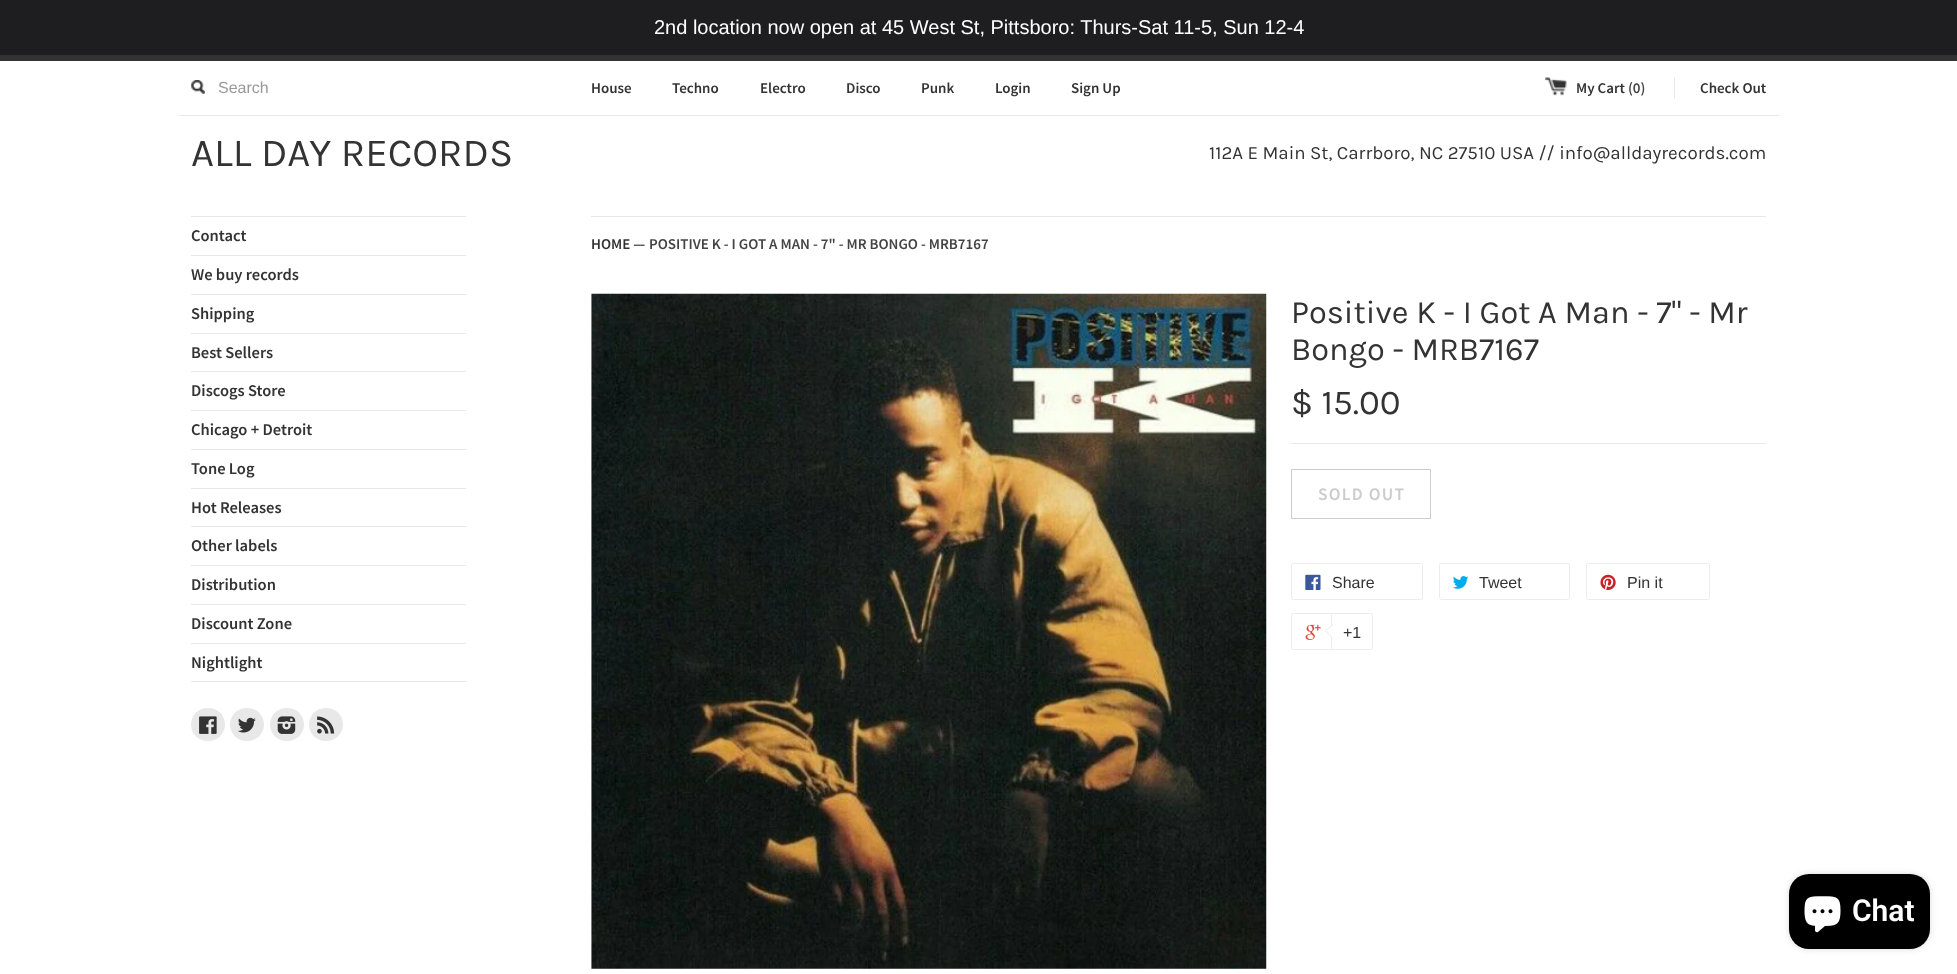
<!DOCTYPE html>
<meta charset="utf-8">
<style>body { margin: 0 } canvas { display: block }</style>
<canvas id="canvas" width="1957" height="974"></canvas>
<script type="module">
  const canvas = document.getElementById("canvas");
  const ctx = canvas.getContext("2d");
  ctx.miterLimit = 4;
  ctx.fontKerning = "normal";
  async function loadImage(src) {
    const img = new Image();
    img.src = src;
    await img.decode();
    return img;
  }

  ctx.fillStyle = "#ffffff";
  ctx.fillRect(0, 0, 1957, 974);
  ctx.fillStyle = "#1e1e20";
  ctx.fillRect(0, 0, 1957, 55);
  ctx.font = "20px Liberation Sans";
  ctx.fillStyle = "#ffffff";
  ctx.fillText("2nd location now open at 45 West St, Pittsboro: Thurs-Sat 11-5, Sun 12-4", 654, 34);
  ctx.fillStyle = "#333333";
  ctx.fillRect(0, 55, 1957, 6);
  ctx.fillStyle = "#e8e8e8";
  ctx.fillRect(179, 115, 1600, 1);
  ctx.drawImage(await loadImage("img1.png"), 191, 80, 14, 14);
  ctx.font = "16px Liberation Sans";
  ctx.fillStyle = "#999999";
  ctx.fillText("Search", 218, 93);
  ctx.font = "600 15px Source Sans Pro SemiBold";
  ctx.fillStyle = "#333333";
  ctx.fillText("House", 591, 93);
  ctx.fillText("Techno", 672, 93);
  ctx.fillText("Electro", 760, 93);
  ctx.fillText("Disco", 846, 93);
  ctx.fillText("Punk", 921, 93);
  ctx.fillText("Login", 995, 93);
  ctx.fillText("Sign Up", 1071, 93);
  ctx.drawImage(await loadImage("img2.png"), 1545, 77, 22, 19);
  ctx.fillText("My Cart", 1576, 93);
  ctx.fillStyle = "#444444";
  ctx.fillText("(0)", 1628, 93);
  ctx.fillStyle = "#333333";
  ctx.fillText("Check Out", 1700, 93);
  ctx.fillStyle = "#e8e8e8";
  ctx.fillRect(1674, 78, 1, 20);
  ctx.font = "40px Karla";
  ctx.fillStyle = "#333333";
  ctx.fillText("ALL DAY RECORDS", 191, 166);
  ctx.font = "18.75px Karla";
  ctx.fillText("112A E Main St, Carrboro, NC 27510 USA // info@alldayrecords.com", 1209, 159);
  ctx.fillStyle = "#e8e8e8";
  ctx.fillRect(191, 681, 275, 1);
  ctx.fillRect(191, 216, 275, 1);
  ctx.font = "600 16.5px Source Sans Pro SemiBold";
  ctx.fillStyle = "#333333";
  ctx.fillText("Contact", 191, 241);
  ctx.fillStyle = "#e8e8e8";
  ctx.fillRect(191, 255, 275, 1);
  ctx.fillStyle = "#333333";
  ctx.fillText("We buy records", 191, 280);
  ctx.fillStyle = "#e8e8e8";
  ctx.fillRect(191, 294, 275, 1);
  ctx.fillStyle = "#333333";
  ctx.fillText("Shipping", 191, 319);
  ctx.fillStyle = "#e8e8e8";
  ctx.fillRect(191, 333, 275, 1);
  ctx.fillStyle = "#333333";
  ctx.fillText("Best Sellers", 191, 358);
  ctx.fillStyle = "#e8e8e8";
  ctx.fillRect(191, 371, 275, 1);
  ctx.fillStyle = "#333333";
  ctx.fillText("Discogs Store", 191, 396);
  ctx.fillStyle = "#e8e8e8";
  ctx.fillRect(191, 410, 275, 1);
  ctx.fillStyle = "#333333";
  ctx.fillText("Chicago + Detroit", 191, 435);
  ctx.fillStyle = "#e8e8e8";
  ctx.fillRect(191, 449, 275, 1);
  ctx.fillStyle = "#333333";
  ctx.fillText("Tone Log", 191, 474);
  ctx.fillStyle = "#e8e8e8";
  ctx.fillRect(191, 488, 275, 1);
  ctx.fillStyle = "#333333";
  ctx.fillText("Hot Releases", 191, 513);
  ctx.fillStyle = "#e8e8e8";
  ctx.fillRect(191, 526, 275, 1);
  ctx.fillStyle = "#333333";
  ctx.fillText("Other labels", 191, 551);
  ctx.fillStyle = "#e8e8e8";
  ctx.fillRect(191, 565, 275, 1);
  ctx.fillStyle = "#333333";
  ctx.fillText("Distribution", 191, 590);
  ctx.fillStyle = "#e8e8e8";
  ctx.fillRect(191, 604, 275, 1);
  ctx.fillStyle = "#333333";
  ctx.fillText("Discount Zone", 191, 629);
  ctx.fillStyle = "#e8e8e8";
  ctx.fillRect(191, 643, 275, 1);
  ctx.fillStyle = "#333333";
  ctx.fillText("Nightlight", 191, 668);
  ctx.fillStyle = "#e8e8e8";
  ctx.beginPath();
  ctx.roundRect(191, 708, 34, 33, 16.5);
  ctx.fill();
  ctx.drawImage(await loadImage("img3.png"), 199, 716, 18, 18);
  ctx.beginPath();
  ctx.roundRect(230, 708, 34, 33, 16.5);
  ctx.fill();
  ctx.drawImage(await loadImage("img4.png"), 238, 717, 18, 16);
  ctx.beginPath();
  ctx.roundRect(270, 708, 34, 33, 16.5);
  ctx.fill();
  ctx.drawImage(await loadImage("img5.png"), 277, 716, 19, 18);
  ctx.beginPath();
  ctx.roundRect(309, 708, 34, 33, 16.5);
  ctx.fill();
  ctx.drawImage(await loadImage("img6.png"), 317, 716, 18, 18);
  ctx.fillRect(591, 216, 1175, 1);
  ctx.font = "600 15px Source Sans Pro SemiBold";
  ctx.fillStyle = "#333333";
  ctx.fillText("HOME —", 591, 249);
  ctx.fillStyle = "#444444";
  ctx.fillText("POSITIVE K - I GOT A MAN - 7\" - MR BONGO - MRB7167", 649, 249);
  ctx.drawImage(await loadImage("img7.png"), 591, 293, 676, 676);
  ctx.font = "32.5px Karla";
  ctx.fillStyle = "#333333";
  ctx.fillText("Positive K - I Got A Man - 7\" - Mr", 1291, 323);
  ctx.fillText("Bongo - MRB7167", 1291, 360);
  ctx.font = "35px Karla";
  ctx.fillText("$ 15.00", 1291, 414);
  ctx.fillStyle = "#e8e8e8";
  ctx.fillRect(1291, 443, 475, 1);
  ctx.strokeStyle = "#cccccc";
  ctx.strokeRect(1291.5, 469.5, 139, 49);
  ctx.letterSpacing = "1.25px";
  ctx.font = "600 17.5px Source Sans Pro SemiBold";
  ctx.fillStyle = "#cccccc";
  ctx.fillText("SOLD OUT", 1318, 500);
  ctx.beginPath();
  ctx.roundRect(1291.5, 563.5, 131, 36, 2);
  ctx.strokeStyle = "#ececec";
  ctx.stroke();
  ctx.drawImage(await loadImage("img8.png"), 1305, 574, 16, 16);
  ctx.letterSpacing = "0px";
  ctx.font = "16px Liberation Sans";
  ctx.fillStyle = "#333333";
  ctx.fillText("Share", 1332, 588);
  ctx.beginPath();
  ctx.roundRect(1439.5, 563.5, 130, 36, 2);
  ctx.stroke();
  ctx.drawImage(await loadImage("img9.png"), 1453, 576, 16, 13);
  ctx.fillText("Tweet", 1479, 588);
  ctx.beginPath();
  ctx.roundRect(1586.5, 563.5, 123, 36, 2);
  ctx.stroke();
  ctx.drawImage(await loadImage("img10.png"), 1600, 574, 16, 16);
  ctx.fillText("Pin it", 1627, 588);
  ctx.beginPath();
  ctx.roundRect(1291.5, 613.5, 79, 36, 2);
  ctx.stroke();
  ctx.drawImage(await loadImage("img11.png"), 1305, 624, 16, 16);
  ctx.fillStyle = "#ffffff";
  ctx.beginPath();
  ctx.roundRect(1331.5, 613.5, 41, 36, [0, 2, 2, 0]);
  ctx.fill();
  ctx.stroke();
  ctx.fillStyle = "#ececec";
  ctx.beginPath();
  ctx.moveTo(1332.5, 624);
  ctx.lineTo(1332.5, 639);
  ctx.lineTo(1325, 631);
  ctx.closePath();
  ctx.fill();
  ctx.fillStyle = "#ffffff";
  ctx.beginPath();
  ctx.moveTo(1334, 624);
  ctx.lineTo(1334, 639);
  ctx.lineTo(1326, 631);
  ctx.closePath();
  ctx.fill();
  ctx.fillStyle = "#333333";
  ctx.fillText("+1", 1343, 638);
  ctx.fillStyle = "rgba(0, 0, 0, 0.15)";
  ctx.filter = "blur(3px)";
  ctx.beginPath();
  ctx.roundRect(1789, 874, 141, 75, 20);
  ctx.fill();
  ctx.filter = "none";
  ctx.fillStyle = "#000000";
  ctx.beginPath();
  ctx.roundRect(1789, 874, 141, 75, 20);
  ctx.fill();
  ctx.drawImage(await loadImage("img12.png"), 1804, 896, 37, 37);
  ctx.font = "600 30px Roboto";
  ctx.fillStyle = "#ffffff";
  ctx.fillText("Chat", 1852, 921);
</script>
